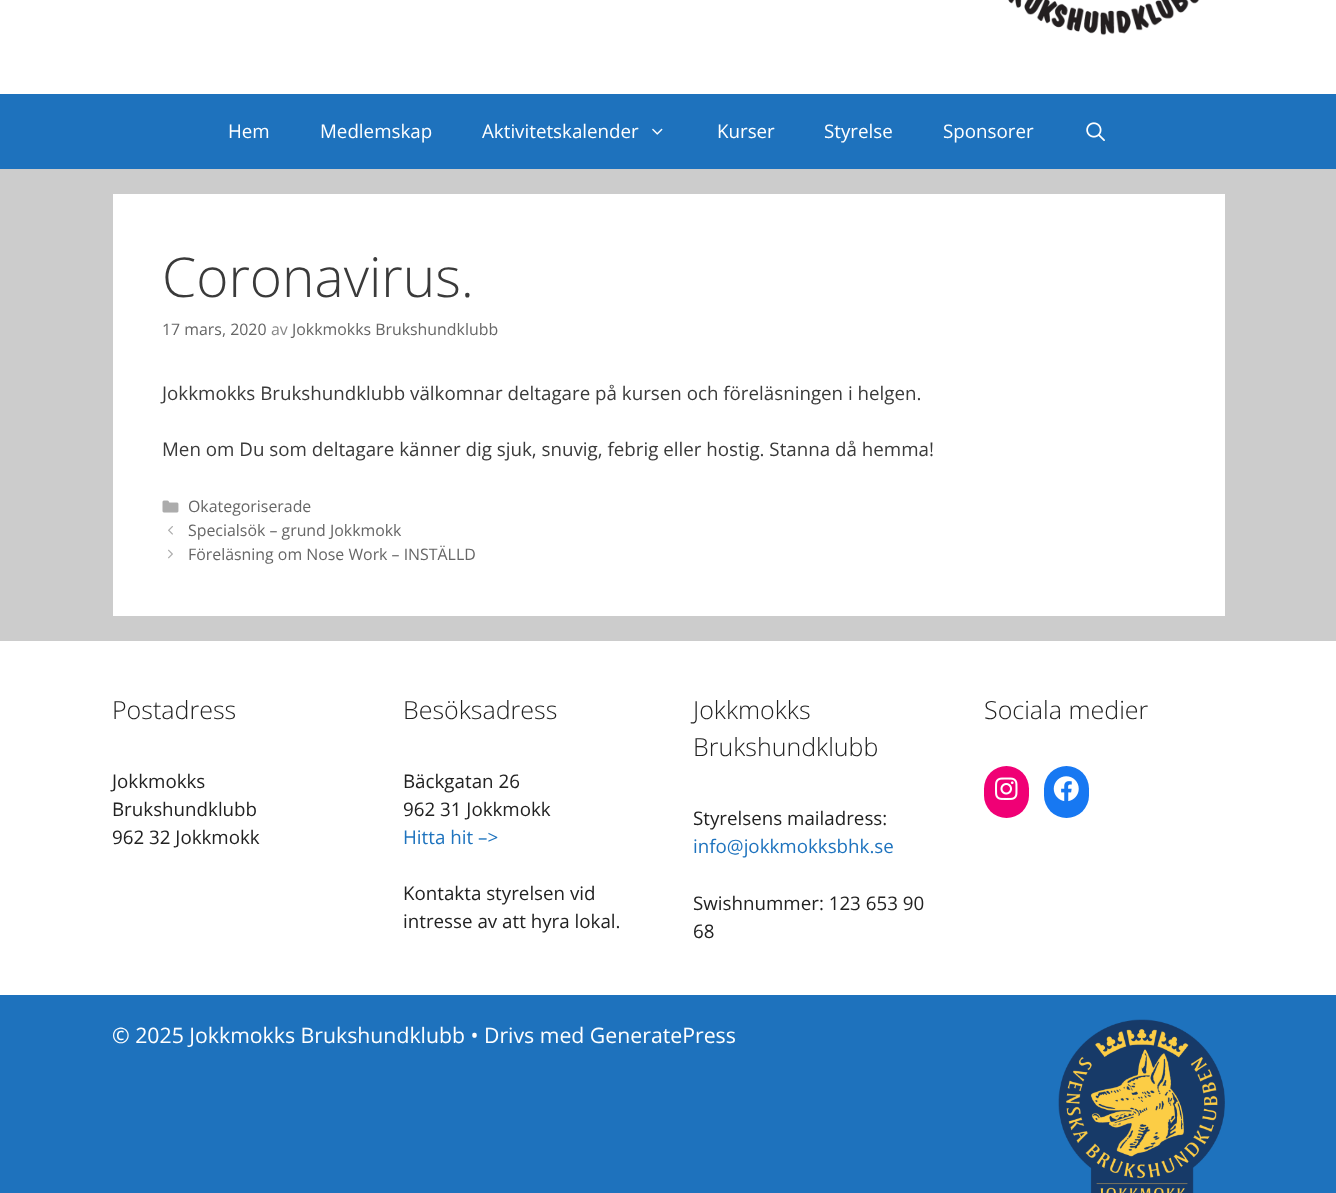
<!DOCTYPE html>
<meta charset="utf-8">
<style>body { margin: 0 } canvas { display: block }</style>
<canvas id="canvas" width="1336" height="1193"></canvas>
<script type="module">
  const canvas = document.getElementById("canvas");
  const ctx = canvas.getContext("2d");
  ctx.miterLimit = 4;
  ctx.fontKerning = "normal";
  async function loadImage(src) {
    const img = new Image();
    img.src = src;
    await img.decode();
    return img;
  }

  ctx.fillStyle = "#cccccc";
  ctx.fillRect(0, 0, 1336, 1193);
  ctx.fillStyle = "#ffffff";
  ctx.fillRect(0, 0, 1336, 94);
  ctx.drawImage(await loadImage("img1.png"), 1008, 0, 192, 36);
  ctx.fillStyle = "#1e72bd";
  ctx.fillRect(0, 94, 1336, 75);
  ctx.font = "18.75px Open Sans";
  ctx.fillStyle = "#ffffff";
  ctx.fillText("Hem", 228, 138);
  ctx.fillText("Medlemskap", 320, 138);
  ctx.fillText("Aktivitetskalender", 482, 138);
  ctx.drawImage(await loadImage("img2.png"), 652, 128, 11, 7);
  ctx.fillText("Kurser", 717, 138);
  ctx.fillText("Styrelse", 824, 138);
  ctx.fillText("Sponsorer", 943, 138);
  ctx.drawImage(await loadImage("img3.png"), 1086, 122, 19, 19);
  ctx.fillRect(113, 194, 1112, 422);
  ctx.font = "300 55px Open Sans";
  ctx.fillStyle = "#3a3a3a";
  ctx.fillText("Coronavirus.", 162, 297);
  ctx.font = "15.9px Open Sans";
  ctx.fillStyle = "#666666";
  ctx.fillText("17 mars, 2020", 162, 335);
  ctx.fillStyle = "#888888";
  ctx.fillText("av", 271, 335);
  ctx.fillStyle = "#666666";
  ctx.fillText("Jokkmokks Brukshundklubb", 292, 335);
  ctx.font = "18.75px Open Sans";
  ctx.fillStyle = "#3a3a3a";
  ctx.fillText("Jokkmokks Brukshundklubb välkomnar deltagare på kursen och föreläsningen i helgen.", 162, 400);
  ctx.fillText("Men om Du som deltagare känner dig sjuk, snuvig, febrig eller hostig. Stanna då hemma!", 162, 456);
  ctx.drawImage(await loadImage("img4.png"), 162, 500, 17, 13);
  ctx.font = "15.9px Open Sans";
  ctx.fillStyle = "#666666";
  ctx.fillText("Okategoriserade", 188, 512);
  ctx.drawImage(await loadImage("img5.png"), 168, 526, 5, 9);
  ctx.fillText("Specialsök – grund Jokkmokk", 188, 536);
  ctx.drawImage(await loadImage("img6.png"), 168, 549, 5, 10);
  ctx.fillText("Föreläsning om Nose Work – INSTÄLLD", 188, 560);
  ctx.fillStyle = "#ffffff";
  ctx.fillRect(0, 641, 1336, 354);
  ctx.font = "300 25px Open Sans";
  ctx.fillStyle = "#222222";
  ctx.fillText("Postadress", 112, 719);
  ctx.font = "18.75px Open Sans";
  ctx.fillText("Jokkmokks", 112, 788);
  ctx.fillText("Brukshundklubb", 112, 816);
  ctx.fillText("962 32 Jokkmokk", 112, 844);
  ctx.font = "300 25px Open Sans";
  ctx.fillText("Besöksadress", 403, 719);
  ctx.font = "18.75px Open Sans";
  ctx.fillText("Bäckgatan 26", 403, 788);
  ctx.fillText("962 31 Jokkmokk", 403, 816);
  ctx.fillStyle = "#1e73be";
  ctx.fillText("Hitta hit –>", 403, 844);
  ctx.fillStyle = "#222222";
  ctx.fillText("Kontakta styrelsen vid", 403, 900);
  ctx.fillText("intresse av att hyra lokal.", 403, 928);
  ctx.font = "300 25px Open Sans";
  ctx.fillText("Jokkmokks", 693, 719);
  ctx.fillText("Brukshundklubb", 693, 756);
  ctx.font = "18.75px Open Sans";
  ctx.fillText("Styrelsens mailadress:", 693, 825);
  ctx.fillStyle = "#1e73be";
  ctx.fillText("info@jokkmokksbhk.se", 693, 853);
  ctx.fillStyle = "#222222";
  ctx.fillText("Swishnummer: 123 653 90", 693, 910);
  ctx.fillText("68", 693, 938);
  ctx.font = "300 25px Open Sans";
  ctx.fillText("Sociala medier", 984, 719);
  ctx.fillStyle = "#f00075";
  ctx.beginPath();
  ctx.roundRect(984, 766, 45, 52, 22.5);
  ctx.fill();
  ctx.drawImage(await loadImage("img7.png"), 995, 777, 23, 23);
  ctx.fillStyle = "#1778f2";
  ctx.beginPath();
  ctx.roundRect(1044, 766, 45, 52, 22.5);
  ctx.fill();
  ctx.drawImage(await loadImage("img8.png"), 1053, 776, 26, 26);
  ctx.fillStyle = "#1e72bd";
  ctx.fillRect(0, 995, 1336, 198);
  ctx.font = "21.25px Open Sans";
  ctx.fillStyle = "#ffffff";
  ctx.fillText("© 2025 Jokkmokks Brukshundklubb • Drivs med GeneratePress", 112, 1043);
  ctx.drawImage(await loadImage("img9.png"), 1058, 1019, 167, 174);
</script>
